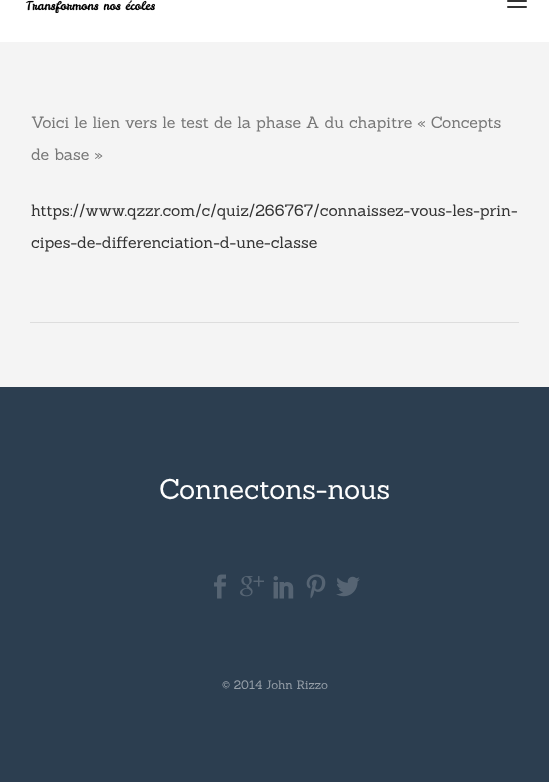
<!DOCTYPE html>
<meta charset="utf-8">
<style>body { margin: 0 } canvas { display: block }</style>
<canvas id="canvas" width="549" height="782"></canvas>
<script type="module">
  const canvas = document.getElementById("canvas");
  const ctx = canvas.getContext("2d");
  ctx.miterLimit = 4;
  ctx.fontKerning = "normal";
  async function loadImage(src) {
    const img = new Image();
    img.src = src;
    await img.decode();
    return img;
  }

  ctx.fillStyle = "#ffffff";
  ctx.fillRect(0, 0, 549, 782);
  ctx.drawImage(await loadImage("img1.png"), 25, 0, 130, 13);
  ctx.drawImage(await loadImage("img2.png"), 507, 0, 20, 8);
  ctx.fillStyle = "#f4f4f4";
  ctx.fillRect(0, 42, 549, 345);
  ctx.fillStyle = "#dddddd";
  ctx.fillRect(30, 322, 489, 1);
  ctx.font = "16px Sanchez";
  ctx.fillStyle = "#777777";
  ctx.fillText("Voici le lien vers le test de la phase A du chapitre « Concepts", 31, 128);
  ctx.fillText("de base »", 31, 160);
  ctx.fillStyle = "#333333";
  ctx.fillText("https://www.qzzr.com/c/quiz/266767/connaissez-vous-les-prin-", 31, 216);
  ctx.fillText("cipes-de-differenciation-d-une-classe", 31, 248);
  ctx.fillStyle = "#2c3e50";
  ctx.fillRect(0, 387, 549, 395);
  ctx.font = "28px Sanchez";
  ctx.fillStyle = "#ffffff";
  ctx.fillText("Connectons-nous", 159, 499);
  ctx.drawImage(await loadImage("img3.png"), 214, 574, 12, 25);
  ctx.drawImage(await loadImage("img4.png"), 240, 576, 24, 21);
  ctx.drawImage(await loadImage("img5.png"), 273, 576, 21, 23);
  ctx.drawImage(await loadImage("img6.png"), 306, 574, 20, 25);
  ctx.drawImage(await loadImage("img7.png"), 336, 576, 24, 21);
  ctx.font = "12px Sanchez";
  ctx.fillStyle = "#969fa8";
  ctx.fillText("© 2014 John Rizzo", 222, 689);
</script>
